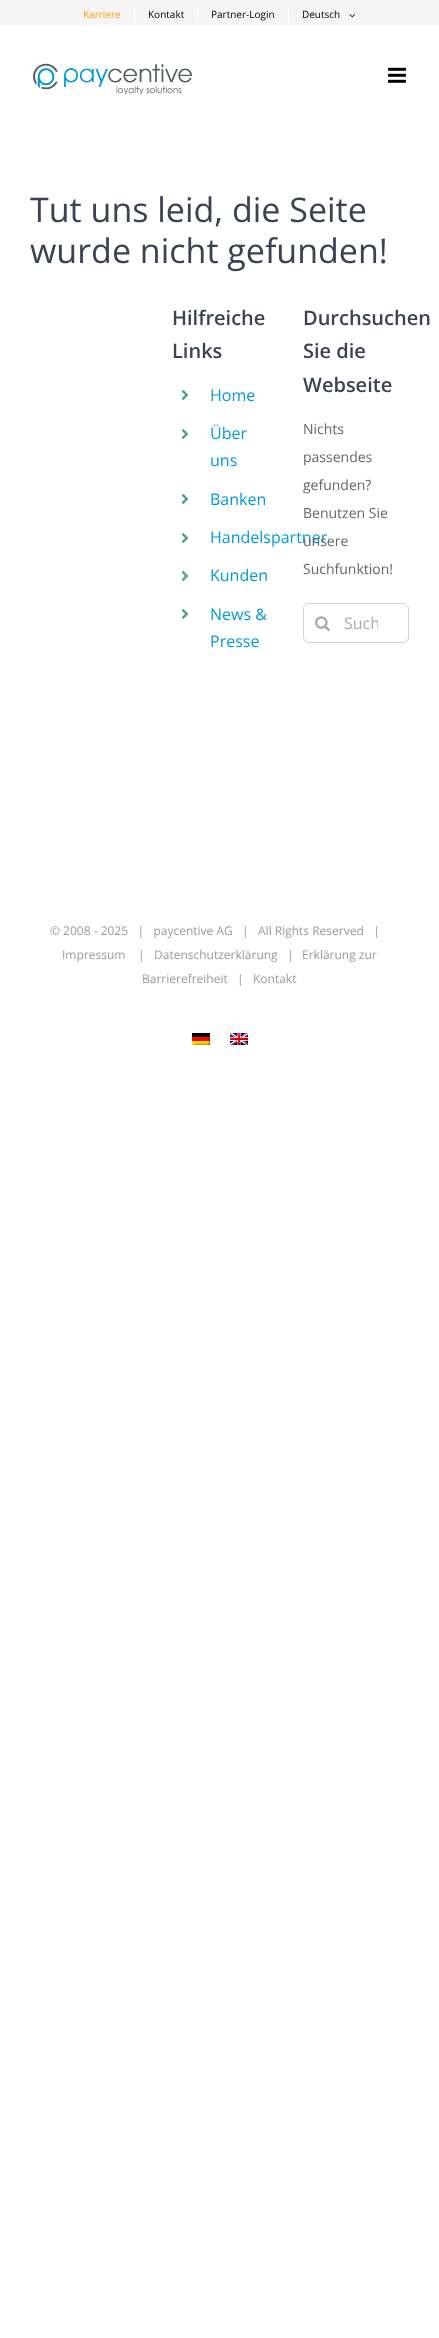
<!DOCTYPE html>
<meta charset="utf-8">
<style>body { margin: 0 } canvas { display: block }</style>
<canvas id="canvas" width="439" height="2338"></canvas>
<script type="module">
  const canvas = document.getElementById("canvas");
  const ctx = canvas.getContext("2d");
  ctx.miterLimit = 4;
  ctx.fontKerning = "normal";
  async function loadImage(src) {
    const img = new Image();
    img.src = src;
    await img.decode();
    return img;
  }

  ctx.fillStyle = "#ffffff";
  ctx.fillRect(0, 0, 439, 2338);
  ctx.fillStyle = "#f5f5f5";
  ctx.fillRect(0, 0, 439, 25);
  ctx.font = "10px Open Sans";
  ctx.fillStyle = "#ffa000";
  ctx.fillText("Karriere", 83, 18);
  ctx.fillStyle = "#ffffff";
  ctx.fillRect(134, 6, 1, 16);
  ctx.fillStyle = "#000000";
  ctx.fillText("Kontakt", 148, 18);
  ctx.fillStyle = "#ffffff";
  ctx.fillRect(197, 6, 1, 16);
  ctx.fillStyle = "#000000";
  ctx.fillText("Partner-Login", 211, 18);
  ctx.fillStyle = "#ffffff";
  ctx.fillRect(288, 6, 1, 16);
  ctx.fillStyle = "#000000";
  ctx.fillText("Deutsch", 302, 18);
  ctx.drawImage(await loadImage("img1.png"), 349, 14, 6, 4);
  ctx.drawImage(await loadImage("img2.png"), 33, 63, 159, 32);
  ctx.drawImage(await loadImage("img3.png"), 388, 67, 18, 16);
  ctx.font = "34px Open Sans";
  ctx.fillStyle = "#3b4251";
  ctx.fillText("Tut uns leid, die Seite", 30, 222);
  ctx.fillText("wurde nicht gefunden!", 30, 263);
  ctx.font = "600 20px Open Sans";
  ctx.fillText("Hilfreiche", 172, 325);
  ctx.fillText("Links", 172, 358);
  ctx.drawImage(await loadImage("img4.png"), 181, 390, 8, 10);
  ctx.font = "16px Open Sans";
  ctx.fillStyle = "#009bd7";
  ctx.fillText("Home", 210, 401);
  ctx.drawImage(await loadImage("img4.png"), 181, 429, 8, 10);
  ctx.fillText("Über", 210, 439);
  ctx.fillText("uns", 210, 466);
  ctx.drawImage(await loadImage("img4.png"), 181, 494, 8, 10);
  ctx.fillText("Banken", 210, 505);
  ctx.drawImage(await loadImage("img4.png"), 181, 533, 8, 10);
  ctx.fillText("Handelspartner", 210, 543);
  ctx.drawImage(await loadImage("img4.png"), 181, 571, 8, 10);
  ctx.fillText("Kunden", 210, 581);
  ctx.drawImage(await loadImage("img4.png"), 181, 609, 8, 10);
  ctx.fillText("News &", 210, 620);
  ctx.fillText("Presse", 210, 647);
  ctx.font = "600 20px Open Sans";
  ctx.fillStyle = "#3b4251";
  ctx.fillText("Durchsuchen", 303, 325);
  ctx.fillText("Sie die", 303, 358);
  ctx.fillText("Webseite", 303, 392);
  ctx.font = "14px Open Sans";
  ctx.fillStyle = "#666666";
  ctx.fillText("Nichts", 303, 434);
  ctx.fillText("passendes", 303, 462);
  ctx.fillText("gefunden?", 303, 490);
  ctx.fillText("Benutzen Sie", 303, 518);
  ctx.fillText("unsere", 303, 546);
  ctx.fillText("Suchfunktion!", 303, 574);
  ctx.beginPath();
  ctx.roundRect(303.5, 603.5, 105, 39, 5.5);
  ctx.strokeStyle = "#d2d2d2";
  ctx.stroke();
  ctx.drawImage(await loadImage("img5.png"), 315, 616, 15, 16);
  ctx.save();
  ctx.beginPath();
  ctx.rect(344, 612, 34, 22);
  ctx.clip();
  ctx.font = "16px Open Sans";
  ctx.fillStyle = "#aaa9a9";
  ctx.fillText("Such", 344, 629);
  ctx.restore();
  ctx.font = "12px Open Sans";
  ctx.fillStyle = "#999999";
  ctx.fillText("© 2008 - 2025   |   paycentive AG   |   All Rights Reserved   |", 50, 935);
  ctx.fillText("Impressum", 62, 959);
  ctx.fillText("|", 138, 959);
  ctx.fillText("Datenschutzerklärung", 154, 959);
  ctx.fillText("|", 287, 959);
  ctx.fillText("Erklärung zur", 302, 959);
  ctx.fillText("Barrierefreiheit", 142, 983);
  ctx.fillText("|", 237, 983);
  ctx.fillText("Kontakt", 253, 983);
  ctx.drawImage(await loadImage("img6.png"), 192, 1033, 18, 12);
  ctx.drawImage(await loadImage("img7.png"), 230, 1033, 18, 12);
</script>
